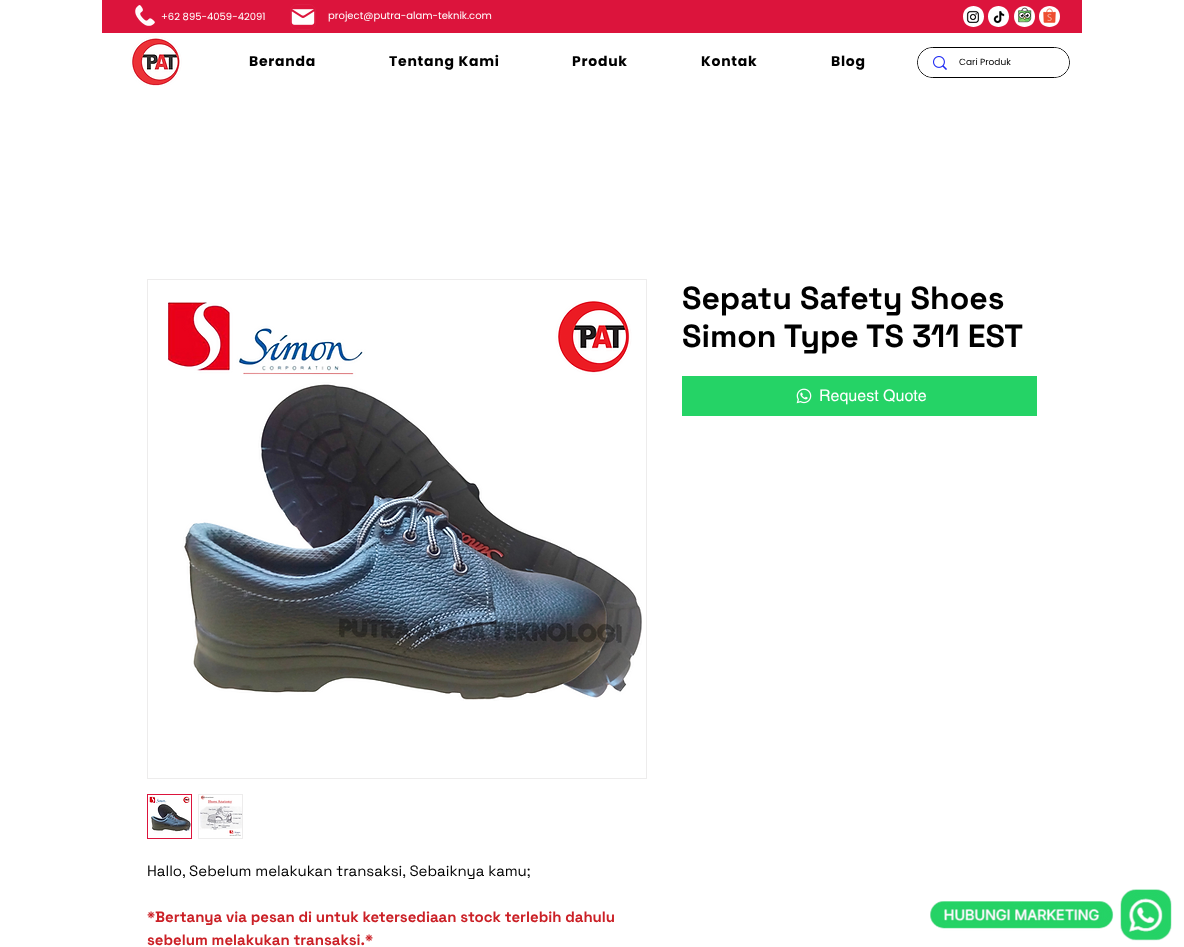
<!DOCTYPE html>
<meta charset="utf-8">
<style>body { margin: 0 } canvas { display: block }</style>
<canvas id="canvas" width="1184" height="947"></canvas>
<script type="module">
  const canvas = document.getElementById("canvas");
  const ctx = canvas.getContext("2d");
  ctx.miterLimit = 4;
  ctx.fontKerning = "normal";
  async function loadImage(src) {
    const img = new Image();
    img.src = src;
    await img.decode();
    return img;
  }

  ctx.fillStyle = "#ffffff";
  ctx.fillRect(0, 0, 1184, 947);
  ctx.fillStyle = "#dc143c";
  ctx.fillRect(102, 0, 980, 33);
  ctx.drawImage(await loadImage("img1.png"), 135, 5, 20, 21);
  ctx.beginPath();
  ctx.roundRect(290.5, 4.5, 25, 25, 6.5);
  ctx.strokeStyle = "#dd1d44";
  ctx.stroke();
  ctx.drawImage(await loadImage("img2.png"), 291, 9, 24, 16);
  ctx.fillStyle = "#ffffff";
  ctx.beginPath();
  ctx.moveTo(984, 16.5);
  ctx.bezierCurveTo(984, 30.5, 963, 30.5, 963, 16.5);
  ctx.bezierCurveTo(963, 2.5, 984, 2.5, 984, 16.5);
  ctx.closePath();
  ctx.moveTo(1009, 16.5);
  ctx.bezierCurveTo(1009, 30.5, 988, 30.5, 988, 16.5);
  ctx.bezierCurveTo(988, 2.5, 1009, 2.5, 1009, 16.5);
  ctx.closePath();
  ctx.fill();
  ctx.beginPath();
  ctx.moveTo(1035, 16.5);
  ctx.bezierCurveTo(1035, 30.5, 1014, 30.5, 1014, 16.5);
  ctx.bezierCurveTo(1014, 2.5, 1035, 2.5, 1035, 16.5);
  ctx.closePath();
  ctx.fill();
  ctx.beginPath();
  ctx.moveTo(1060, 16.5);
  ctx.bezierCurveTo(1060, 30.5, 1039, 30.5, 1039, 16.5);
  ctx.bezierCurveTo(1039, 2.5, 1060, 2.5, 1060, 16.5);
  ctx.closePath();
  ctx.fill();
  ctx.drawImage(await loadImage("img3.png"), 966, 10, 13, 13);
  ctx.drawImage(await loadImage("img4.png"), 993, 11, 12, 13);
  ctx.drawImage(await loadImage("img5.png"), 1018, 7, 14, 16);
  ctx.font = "10px Poppins";
  ctx.fillText("+62 895-4059-42091", 161, 20);
  ctx.fillText("project@putra-alam-teknik.com", 328, 19);
  ctx.drawImage(await loadImage("img6.png"), 1043, 8, 13, 15);
  ctx.drawImage(await loadImage("img7.png"), 130, 36, 52, 50);
  ctx.letterSpacing = "0.75px";
  ctx.font = "bold 14px Poppins";
  ctx.fillStyle = "#000000";
  ctx.fillText("Beranda", 249, 66);
  ctx.fillText("Tentang Kami", 389, 66);
  ctx.fillText("Produk", 572, 66);
  ctx.fillText("Kontak", 701, 66);
  ctx.fillText("Blog", 831, 66);
  ctx.beginPath();
  ctx.roundRect(917.5, 47.5, 152, 30, 15);
  ctx.strokeStyle = "#000000";
  ctx.stroke();
  ctx.fillStyle = "#ffffff";
  ctx.beginPath();
  ctx.roundRect(918, 48, 151, 29, 14.5);
  ctx.fill();
  ctx.drawImage(await loadImage("img8.png"), 933, 56, 14, 14);
  ctx.letterSpacing = "0px";
  ctx.font = "9px Poppins";
  ctx.fillStyle = "#000000";
  ctx.fillText("Cari Produk", 959, 65);
  ctx.font = "bold 32px Space Grotesk";
  ctx.fillText("Sepatu Safety Shoes", 682, 309);
  ctx.fillText("Simon Type TS 311 EST", 682, 347);
  ctx.fillStyle = "#25d366";
  ctx.fillRect(682, 376, 355, 40);
  ctx.drawImage(await loadImage("img9.png"), 796, 388, 16, 16);
  ctx.font = "16px helvetica";
  ctx.fillStyle = "#ffffff";
  ctx.fillText("Request Quote", 819, 401);
  ctx.strokeStyle = "#edecec";
  ctx.strokeRect(147.5, 279.5, 499, 499);
  ctx.drawImage(await loadImage("img10.png"), 168, 301, 474, 400);
  ctx.strokeStyle = "#dc143c";
  ctx.strokeRect(147.5, 794.5, 44, 44);
  ctx.drawImage(await loadImage("img11.png"), 148, 795, 43, 43);
  ctx.fillStyle = "#edecec";
  ctx.fillRect(198, 794, 45, 45);
  ctx.drawImage(await loadImage("img12.png"), 199, 795, 43, 43);
  ctx.font = "15px Space Grotesk";
  ctx.fillStyle = "#000000";
  ctx.fillText("Hallo, Sebelum melakukan transaksi, Sebaiknya kamu;", 147, 876);
  ctx.font = "bold 15px Space Grotesk";
  ctx.fillStyle = "#cb2026";
  ctx.fillText("*Bertanya via pesan di untuk ketersediaan stock terlebih dahulu", 147, 922);
  ctx.fillText("sebelum melakukan transaksi.*", 147, 945);
  ctx.drawImage(await loadImage("img13.png"), 930, 889, 242, 52);
</script>
